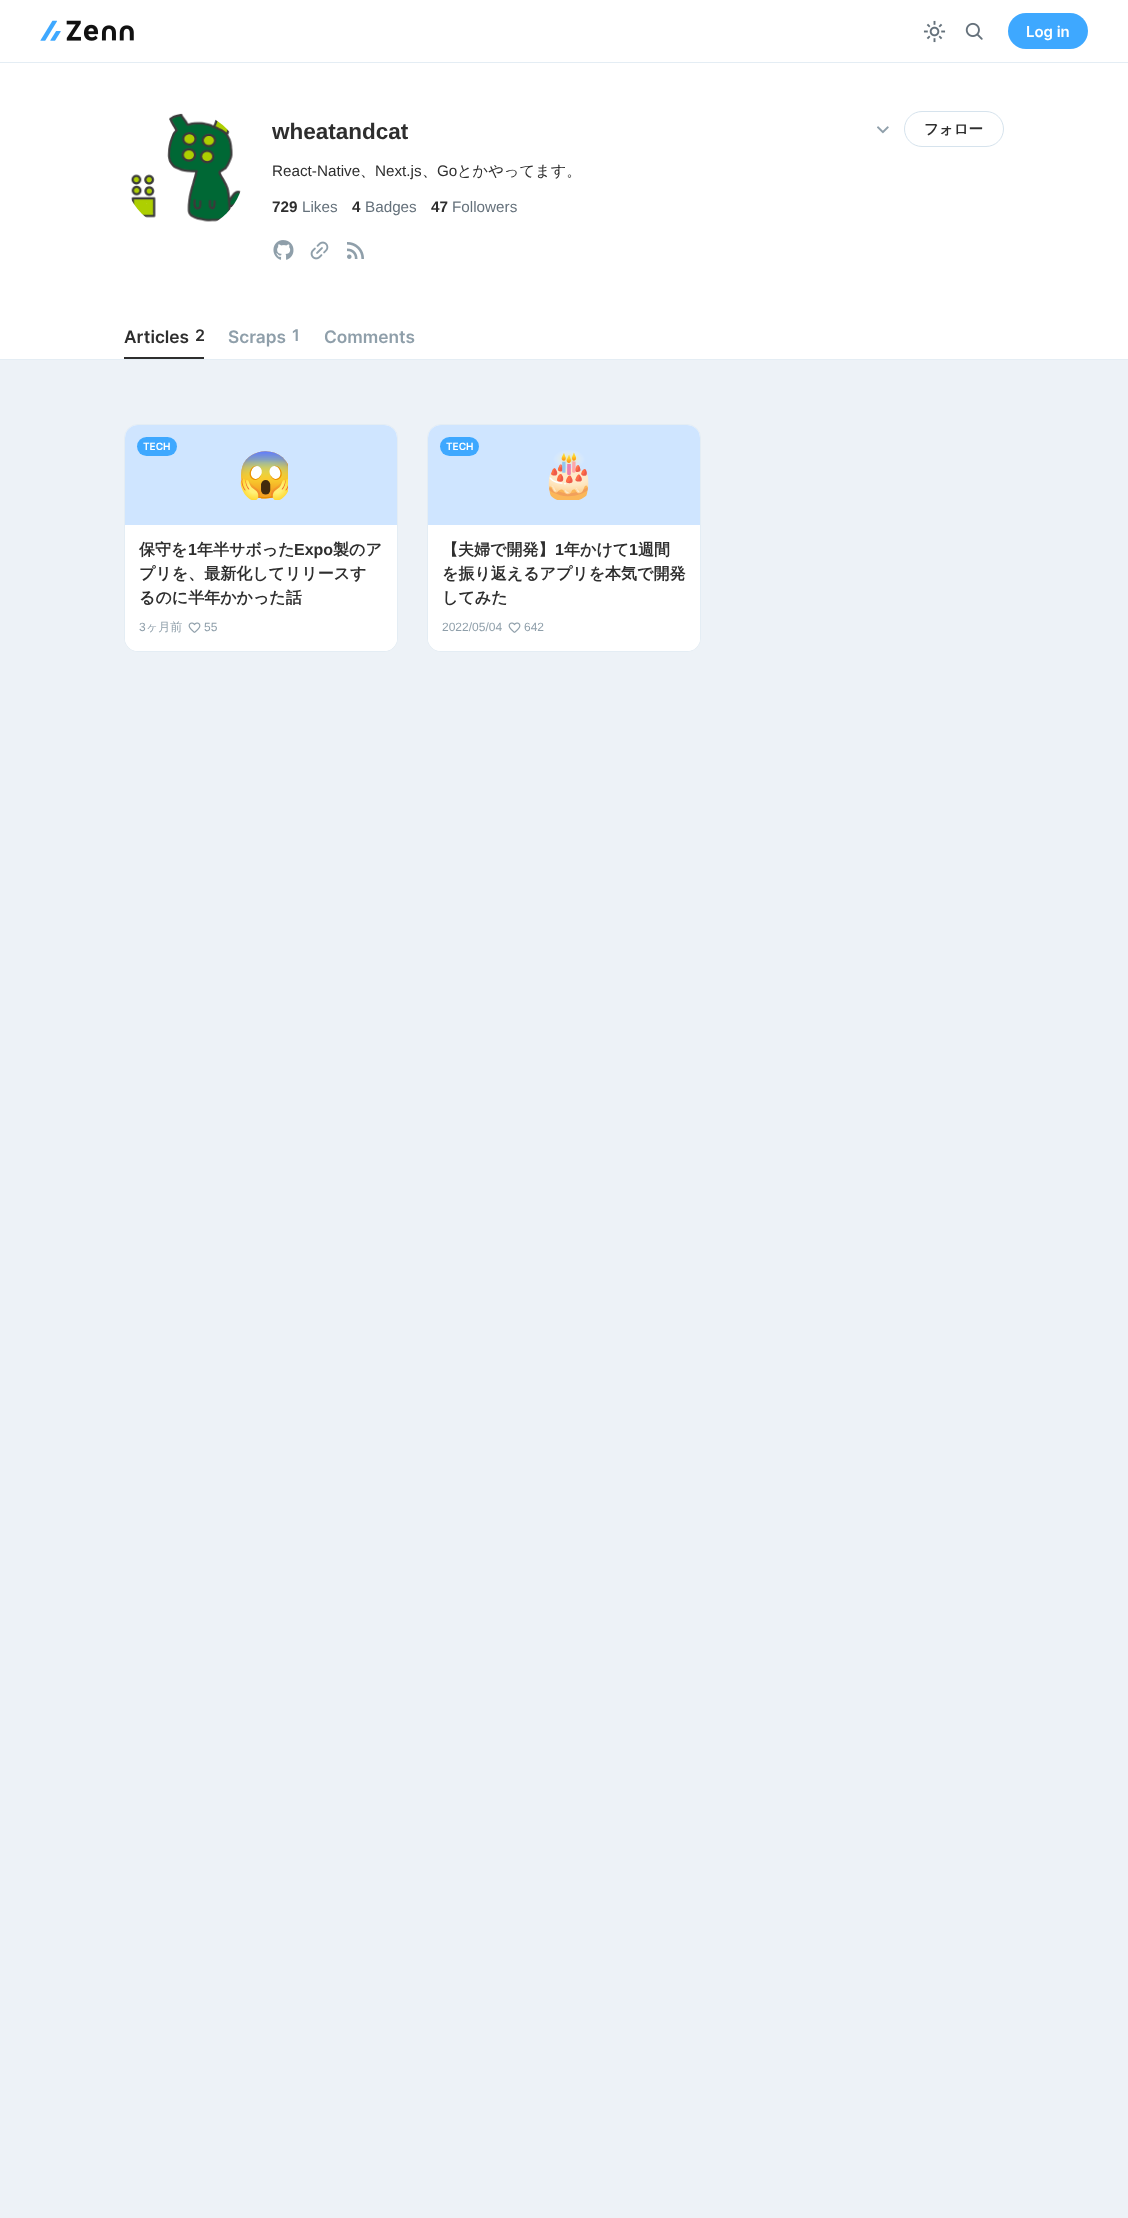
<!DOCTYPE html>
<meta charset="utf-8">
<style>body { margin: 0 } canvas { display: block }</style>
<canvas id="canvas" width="1128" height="2218"></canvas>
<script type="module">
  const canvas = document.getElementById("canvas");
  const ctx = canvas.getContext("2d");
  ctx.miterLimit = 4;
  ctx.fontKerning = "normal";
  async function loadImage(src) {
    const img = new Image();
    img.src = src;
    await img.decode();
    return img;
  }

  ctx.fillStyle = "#ffffff";
  ctx.fillRect(0, 0, 1128, 2218);
  ctx.drawImage(await loadImage("img1.png"), 40, 20, 94, 21);
  ctx.drawImage(await loadImage("img2.png"), 923, 20, 23, 23);
  ctx.drawImage(await loadImage("img3.png"), 965, 22, 18, 18);
  ctx.fillStyle = "#3ea8ff";
  ctx.beginPath();
  ctx.roundRect(1008, 13, 80, 36, 18);
  ctx.fill();
  ctx.font = "600 15px Inter";
  ctx.fillStyle = "#ffffff";
  ctx.fillText("Log in", 1026, 37);
  ctx.fillStyle = "#e4edf4";
  ctx.fillRect(0, 62, 1128, 1);
  ctx.drawImage(await loadImage("img4.png"), 130, 113, 111, 109);
  ctx.font = "bold 22.5px Liberation Sans";
  ctx.fillStyle = "#2e2e2e";
  ctx.fillText("wheatandcat", 272, 139);
  ctx.drawImage(await loadImage("img5.png"), 877, 126, 12, 8);
  ctx.beginPath();
  ctx.roundRect(904.5, 111.5, 99, 35, 17.5);
  ctx.strokeStyle = "#d6e3ed";
  ctx.stroke();
  ctx.font = "bold 14.5px WenQuanYi Zen Hei";
  ctx.fillText("フォロー", 924, 134);
  ctx.font = "15.25px Liberation Sans";
  ctx.fillText("React-Native", 272, 176);
  ctx.font = "500 15.25px WenQuanYi Zen Hei";
  ctx.fillText("、", 360, 176);
  ctx.font = "15.25px Liberation Sans";
  ctx.fillText("Next.js", 375, 176);
  ctx.font = "500 15.25px WenQuanYi Zen Hei";
  ctx.fillText("、", 422, 176);
  ctx.font = "15.25px Liberation Sans";
  ctx.fillText("Go", 437, 176);
  ctx.font = "500 15.25px WenQuanYi Zen Hei";
  ctx.fillText("とかやってます。", 457, 176);
  ctx.font = "bold 15.25px Liberation Sans";
  ctx.fillText("729", 272, 212);
  ctx.font = "15.25px Liberation Sans";
  ctx.fillStyle = "#65717b";
  ctx.fillText("Likes", 302, 212);
  ctx.font = "bold 15.25px Liberation Sans";
  ctx.fillStyle = "#2e2e2e";
  ctx.fillText("4", 352, 212);
  ctx.font = "15.25px Liberation Sans";
  ctx.fillStyle = "#65717b";
  ctx.fillText("Badges", 365, 212);
  ctx.font = "bold 15.25px Liberation Sans";
  ctx.fillStyle = "#2e2e2e";
  ctx.fillText("47", 431, 212);
  ctx.font = "15.25px Liberation Sans";
  ctx.fillStyle = "#65717b";
  ctx.fillText("Followers", 452, 212);
  ctx.drawImage(await loadImage("img6.png"), 273, 240, 21, 20);
  ctx.drawImage(await loadImage("img7.png"), 310, 241, 19, 19);
  ctx.drawImage(await loadImage("img8.png"), 347, 242, 17, 17);
  ctx.font = "600 17.25px Inter";
  ctx.fillStyle = "#2e2e2e";
  ctx.fillText("Articles", 124, 343);
  ctx.font = "600 16px Inter";
  ctx.fillText("2", 195, 341);
  ctx.fillRect(124, 357, 80, 2);
  ctx.font = "600 17.25px Inter";
  ctx.fillStyle = "#8f9faa";
  ctx.fillText("Scraps", 228, 343);
  ctx.font = "600 16px Inter";
  ctx.fillText("1", 292, 341);
  ctx.font = "600 17.25px Inter";
  ctx.fillText("Comments", 324, 343);
  ctx.fillStyle = "#edf2f7";
  ctx.fillRect(0, 360, 1128, 1858);
  ctx.fillStyle = "#e4edf4";
  ctx.fillRect(0, 359, 1128, 1);
  ctx.beginPath();
  ctx.roundRect(124.5, 424.5, 273, 227, 13.5);
  ctx.strokeStyle = "#e4edf4";
  ctx.stroke();
  ctx.fillStyle = "#ffffff";
  ctx.beginPath();
  ctx.roundRect(125, 425, 272, 226, 13);
  ctx.fill();
  ctx.fillStyle = "#cfe5ff";
  ctx.beginPath();
  ctx.roundRect(125, 425, 272, 100, [13, 13, 0, 0]);
  ctx.fill();
  ctx.fillStyle = "#3ea8ff";
  ctx.beginPath();
  ctx.roundRect(137, 437, 40, 19, 9.5);
  ctx.fill();
  ctx.font = "600 10px Inter";
  ctx.fillStyle = "#ffffff";
  ctx.fillText("TECH", 143, 450);
  ctx.save();
  ctx.beginPath();
  ctx.rect(237, 450, 51, 50);
  ctx.clip();
  ctx.letterSpacing = "5px";
  ctx.font = "46px Noto Color Emoji";
  ctx.fillStyle = "#000000";
  ctx.fillText("😱", 237, 491);
  ctx.restore();
  ctx.font = "bold 16px WenQuanYi Zen Hei";
  ctx.fillStyle = "#2e2e2e";
  ctx.fillText("保守を", 139, 555);
  ctx.font = "bold 16px Liberation Sans";
  ctx.fillText("1", 188, 555);
  ctx.font = "bold 16px WenQuanYi Zen Hei";
  ctx.fillText("年半サボった", 197, 555);
  ctx.font = "bold 16px Liberation Sans";
  ctx.fillText("Expo", 294, 555);
  ctx.font = "bold 16px WenQuanYi Zen Hei";
  ctx.fillText("製のア", 333, 555);
  ctx.fillText("プリを、最新化してリリースす", 139, 579);
  ctx.fillText("るのに半年かかった話", 139, 603);
  ctx.fillStyle = "#ffffff";
  ctx.beginPath();
  ctx.roundRect(125, 610, 272, 41, [0, 0, 13, 13]);
  ctx.fill();
  ctx.font = "12px Liberation Sans";
  ctx.fillStyle = "#8f9faa";
  ctx.fillText("3", 139, 631);
  ctx.font = "500 12px WenQuanYi Zen Hei";
  ctx.fillText("ヶ月前", 146, 631);
  ctx.drawImage(await loadImage("img9.png"), 188, 622, 13, 11);
  ctx.font = "12px Liberation Sans";
  ctx.fillText("55", 204, 631);
  ctx.beginPath();
  ctx.roundRect(427.5, 424.5, 273, 227, 13.5);
  ctx.stroke();
  ctx.fillStyle = "#ffffff";
  ctx.beginPath();
  ctx.roundRect(428, 425, 272, 226, 13);
  ctx.fill();
  ctx.fillStyle = "#cfe5ff";
  ctx.beginPath();
  ctx.roundRect(428, 425, 272, 100, [13, 13, 0, 0]);
  ctx.fill();
  ctx.fillStyle = "#3ea8ff";
  ctx.beginPath();
  ctx.roundRect(440, 437, 39, 19, 9.5);
  ctx.fill();
  ctx.font = "600 10px Inter";
  ctx.fillStyle = "#ffffff";
  ctx.fillText("TECH", 446, 450);
  ctx.save();
  ctx.beginPath();
  ctx.rect(540, 450, 50, 50);
  ctx.clip();
  ctx.letterSpacing = "5px";
  ctx.font = "46px Noto Color Emoji";
  ctx.fillStyle = "#000000";
  ctx.fillText("🎂", 540, 491);
  ctx.restore();
  ctx.font = "bold 16px WenQuanYi Zen Hei";
  ctx.fillStyle = "#2e2e2e";
  ctx.fillText("【夫婦で開発】", 442, 555);
  ctx.font = "bold 16px Liberation Sans";
  ctx.fillText("1", 555, 555);
  ctx.font = "bold 16px WenQuanYi Zen Hei";
  ctx.fillText("年かけて", 564, 555);
  ctx.font = "bold 16px Liberation Sans";
  ctx.fillText("1", 629, 555);
  ctx.font = "bold 16px WenQuanYi Zen Hei";
  ctx.fillText("週間", 638, 555);
  ctx.fillText("を振り返えるアプリを本気で開発", 442, 579);
  ctx.fillText("してみた", 442, 603);
  ctx.fillStyle = "#ffffff";
  ctx.beginPath();
  ctx.roundRect(428, 610, 272, 41, [0, 0, 13, 13]);
  ctx.fill();
  ctx.font = "12px Liberation Sans";
  ctx.fillStyle = "#8f9faa";
  ctx.fillText("2022/05/04", 442, 631);
  ctx.drawImage(await loadImage("img9.png"), 508, 622, 13, 11);
  ctx.fillText("642", 524, 631);
</script>
